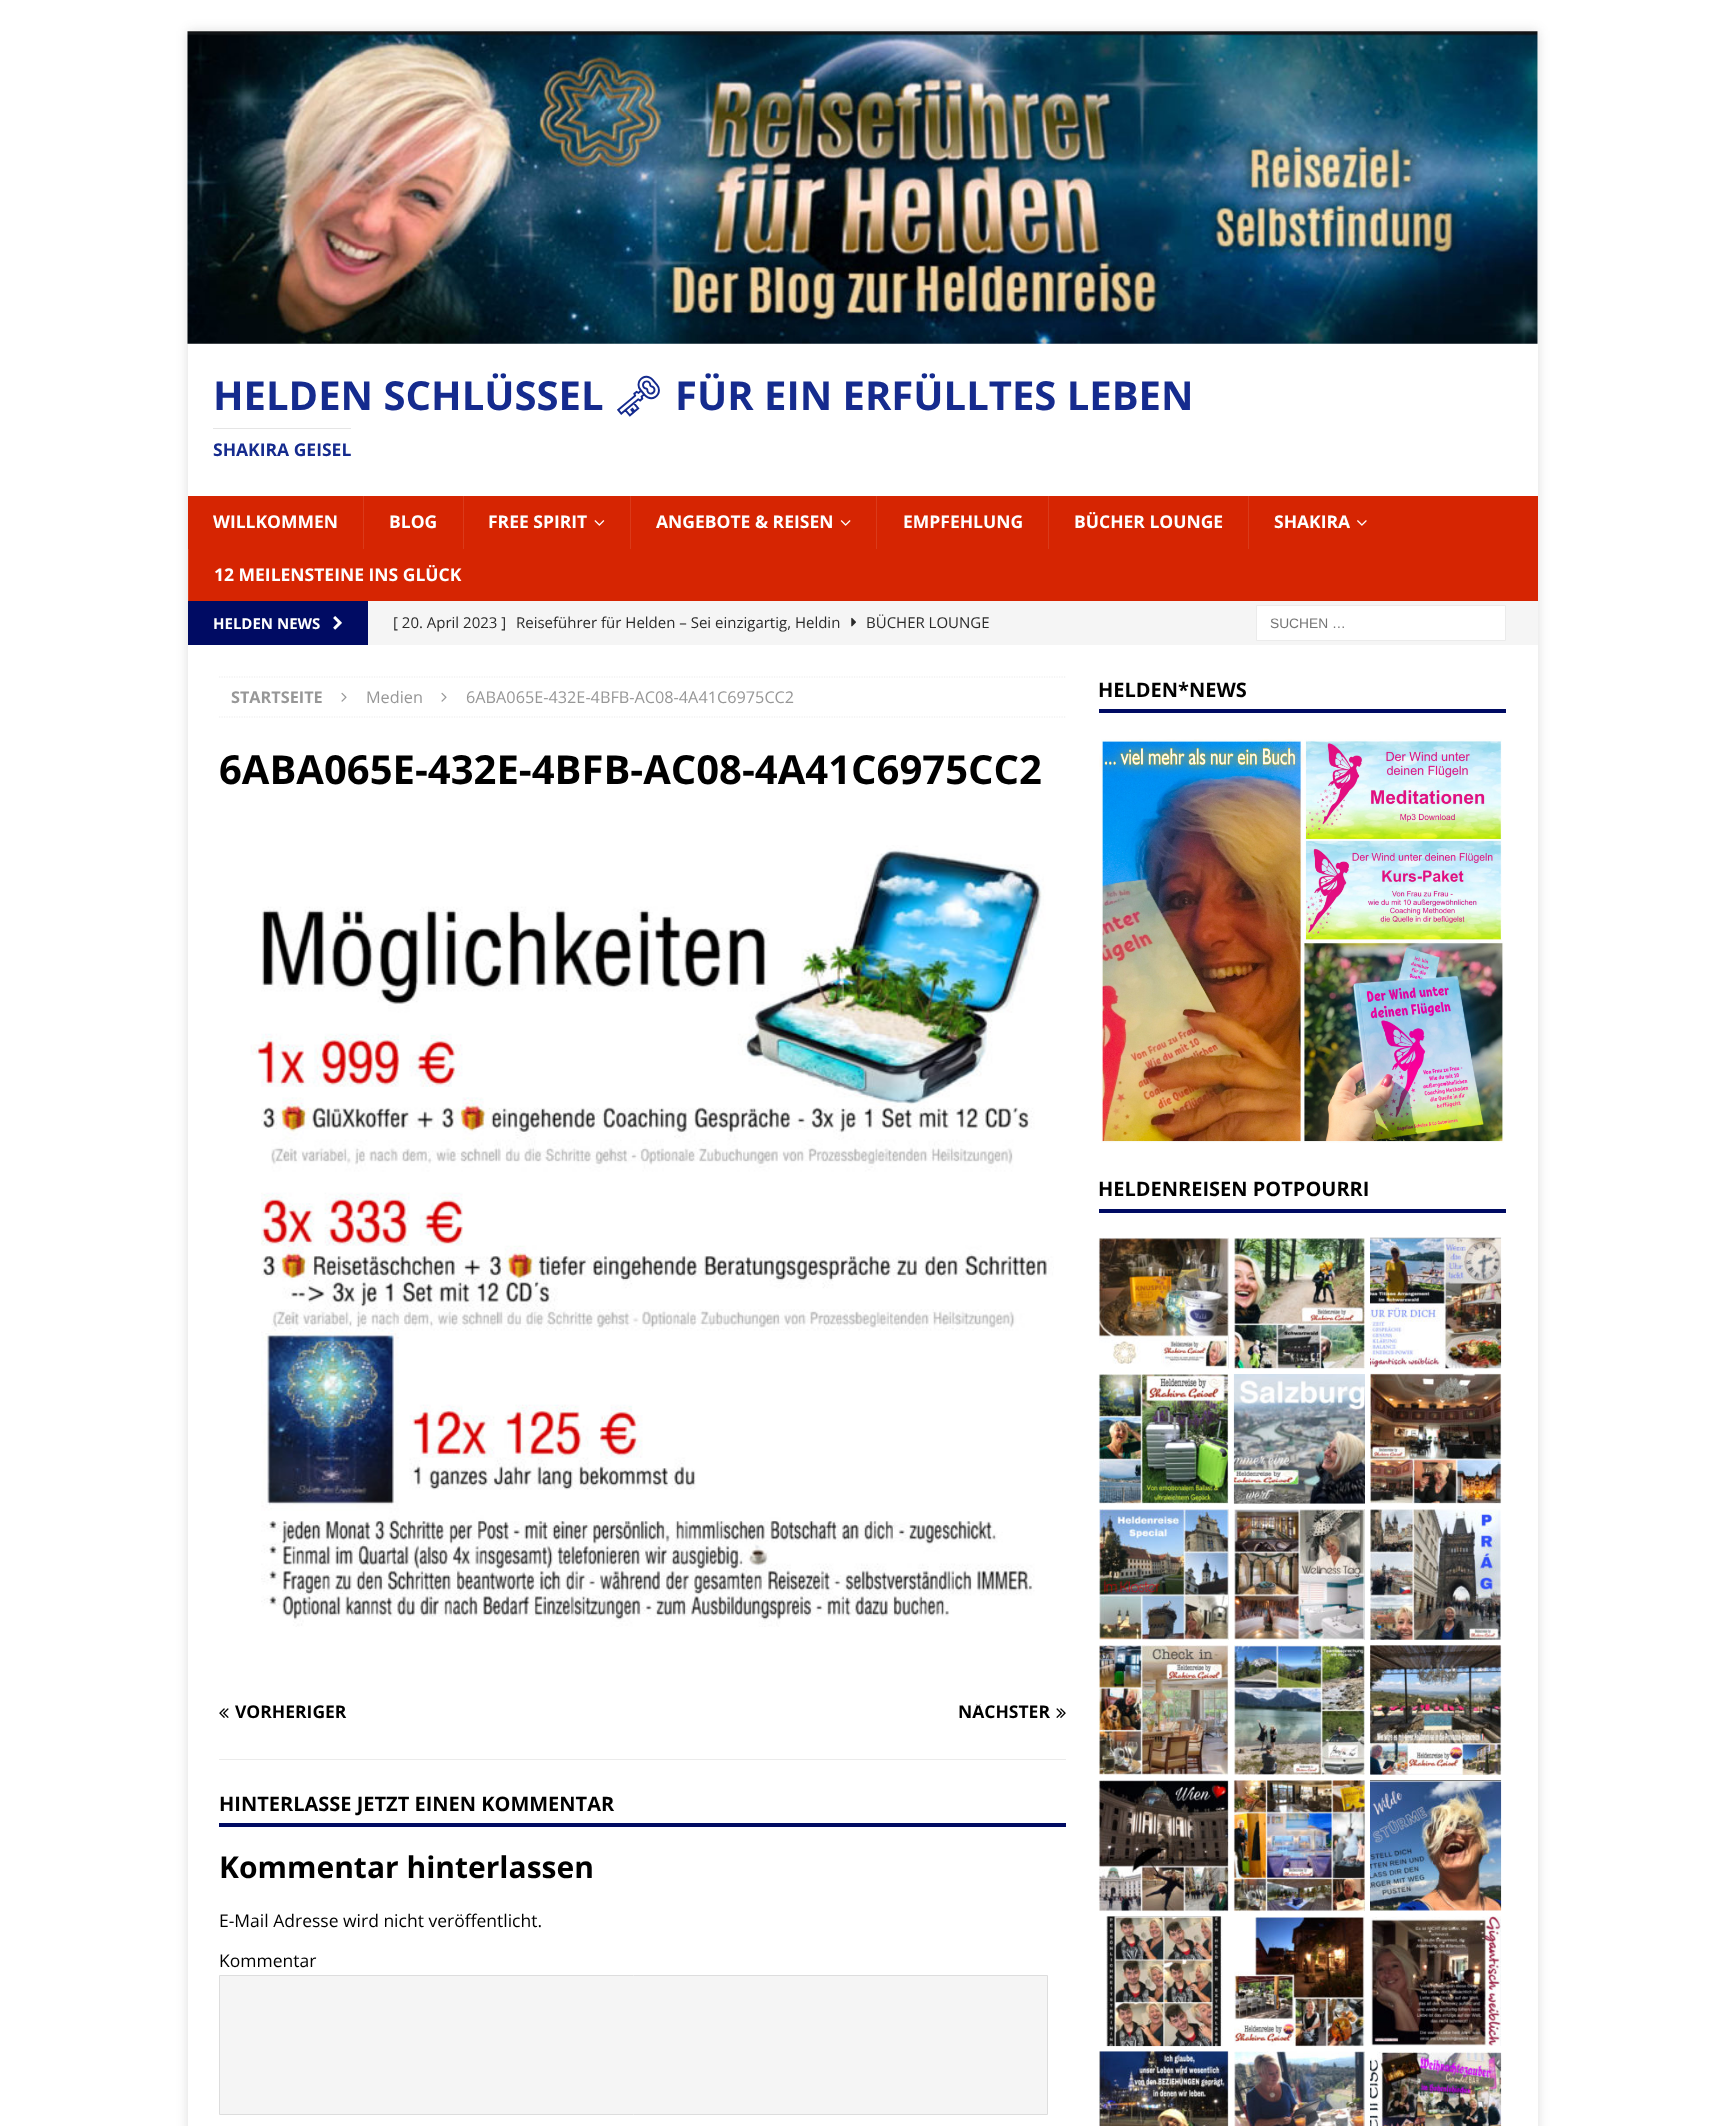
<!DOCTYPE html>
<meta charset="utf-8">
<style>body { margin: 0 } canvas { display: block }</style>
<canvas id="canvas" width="1724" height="2126"></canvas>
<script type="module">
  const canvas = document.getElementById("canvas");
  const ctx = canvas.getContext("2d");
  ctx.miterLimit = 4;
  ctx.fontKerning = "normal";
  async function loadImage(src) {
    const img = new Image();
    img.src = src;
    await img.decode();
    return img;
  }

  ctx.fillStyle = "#ffffff";
  ctx.fillRect(0, 0, 1724, 2126);
  ctx.fillStyle = "rgba(50, 50, 50, 0.17)";
  ctx.filter = "blur(6px)";
  ctx.beginPath();
  ctx.rect(188, 31, 1350, 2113);
  ctx.fill();
  ctx.filter = "none";
  ctx.fillStyle = "#ffffff";
  ctx.fillRect(188, 31, 1350, 465);
  ctx.drawImage(await loadImage("img1.png"), 187, 31, 1351, 313);
  ctx.font = "bold 40px Open Sans";
  ctx.fillStyle = "#152b8e";
  ctx.fillText("HELDEN SCHLÜSSEL", 213, 410);
  ctx.font = "bold 40px Noto Emoji";
  ctx.fillText("🗝", 613, 410);
  ctx.font = "bold 40px Open Sans";
  ctx.fillText("FÜR EIN ERFÜLLTES LEBEN", 675, 410);
  ctx.fillStyle = "#e5e5e5";
  ctx.fillRect(213, 428, 138, 1);
  ctx.font = "bold 17.5px Open Sans";
  ctx.fillStyle = "#152b8e";
  ctx.fillText("SHAKIRA GEISEL", 213, 456);
  ctx.fillStyle = "#d62502";
  ctx.fillRect(188, 496, 1350, 105);
  ctx.fillStyle = "#ffffff";
  ctx.fillText("WILLKOMMEN", 213, 528);
  ctx.fillStyle = "#da3b1b";
  ctx.fillRect(363, 496, 1, 53);
  ctx.fillStyle = "#ffffff";
  ctx.fillText("BLOG", 389, 528);
  ctx.fillStyle = "#da3b1b";
  ctx.fillRect(463, 496, 1, 53);
  ctx.fillStyle = "#ffffff";
  ctx.fillText("FREE SPIRIT", 488, 528);
  ctx.drawImage(await loadImage("img2.png"), 594, 520, 11, 6);
  ctx.fillStyle = "#da3b1b";
  ctx.fillRect(630, 496, 1, 53);
  ctx.fillStyle = "#ffffff";
  ctx.fillText("ANGEBOTE & REISEN", 656, 528);
  ctx.drawImage(await loadImage("img3.png"), 840, 520, 11, 6);
  ctx.fillStyle = "#da3b1b";
  ctx.fillRect(876, 496, 1, 53);
  ctx.fillStyle = "#ffffff";
  ctx.fillText("EMPFEHLUNG", 903, 528);
  ctx.fillStyle = "#da3b1b";
  ctx.fillRect(1048, 496, 1, 53);
  ctx.fillStyle = "#ffffff";
  ctx.fillText("BÜCHER LOUNGE", 1074, 528);
  ctx.fillStyle = "#da3b1b";
  ctx.fillRect(1248, 496, 1, 53);
  ctx.fillStyle = "#ffffff";
  ctx.fillText("SHAKIRA", 1274, 528);
  ctx.drawImage(await loadImage("img4.png"), 1357, 520, 10, 6);
  ctx.fillStyle = "#da3b1b";
  ctx.fillRect(188, 549, 1, 52);
  ctx.fillStyle = "#ffffff";
  ctx.fillText("12 MEILENSTEINE INS GLÜCK", 214, 581);
  ctx.fillStyle = "#f5f5f5";
  ctx.fillRect(368, 601, 1170, 44);
  ctx.fillStyle = "#000b63";
  ctx.fillRect(188, 601, 180, 44);
  ctx.font = "bold 15px Open Sans";
  ctx.fillStyle = "#ffffff";
  ctx.fillText("HELDEN NEWS", 213, 629);
  ctx.drawImage(await loadImage("img5.png"), 333, 616, 9, 14);
  ctx.font = "15px Open Sans";
  ctx.fillStyle = "#2a2a2a";
  ctx.fillText("[ 20. April 2023 ]", 393, 628);
  ctx.fillText("Reiseführer für Helden – Sei einzigartig, Heldin", 516, 628);
  ctx.drawImage(await loadImage("img6.png"), 851, 617, 5, 10);
  ctx.fillText("BÜCHER LOUNGE", 866, 628);
  ctx.fillStyle = "#ffffff";
  ctx.beginPath();
  ctx.rect(1256.5, 605.5, 249, 35);
  ctx.fill();
  ctx.strokeStyle = "#ebebeb";
  ctx.stroke();
  ctx.font = "13.75px Liberation Sans";
  ctx.fillStyle = "#757575";
  ctx.fillText("SUCHEN …", 1270, 628);
  ctx.fillStyle = "#ffffff";
  ctx.fillRect(188, 645, 1350, 1481);
  ctx.beginPath();
  ctx.moveTo(219, 677);
  ctx.lineTo(1066, 677);
  ctx.lineWidth = 1.2;
  ctx.setLineDash([1.25, 1.25]);
  ctx.stroke();
  ctx.beginPath();
  ctx.moveTo(219, 717);
  ctx.lineTo(1066, 717);
  ctx.stroke();
  ctx.font = "bold 16.25px Open Sans";
  ctx.fillStyle = "#979797";
  ctx.fillText("STARTSEITE", 231, 703);
  ctx.drawImage(await loadImage("img7.png"), 341, 692, 6, 10);
  ctx.font = "16.25px Open Sans";
  ctx.fillText("Medien", 366, 703);
  ctx.drawImage(await loadImage("img7.png"), 441, 692, 6, 10);
  ctx.fillText("6ABA065E-432E-4BFB-AC08-4A41C6975CC2", 466, 703);
  ctx.font = "bold 40px Open Sans";
  ctx.fillStyle = "#000000";
  ctx.fillText("6ABA065E-432E-4BFB-AC08-4A41C6975CC2", 219, 784);
  ctx.drawImage(await loadImage("img8.png"), 250, 845, 804, 782);
  ctx.fillStyle = "#ebebeb";
  ctx.fillRect(219, 1759, 847, 1);
  ctx.drawImage(await loadImage("img9.png"), 219, 1708, 10, 10);
  ctx.font = "bold 17.5px Open Sans";
  ctx.fillStyle = "#000000";
  ctx.fillText("VORHERIGER", 235, 1718);
  ctx.save();
  ctx.beginPath();
  ctx.rect(654, 1704, 412, 17);
  ctx.clip();
  ctx.fillText("NÄCHSTER", 958, 1718);
  ctx.restore();
  ctx.drawImage(await loadImage("img10.png"), 1056, 1708, 10, 10);
  ctx.fillStyle = "#000b63";
  ctx.fillRect(219, 1823, 847, 4);
  ctx.font = "bold 20px Open Sans";
  ctx.fillStyle = "#000000";
  ctx.fillText("HINTERLASSE JETZT EINEN KOMMENTAR", 219, 1811);
  ctx.font = "bold 30px Open Sans";
  ctx.fillText("Kommentar hinterlassen", 219, 1878);
  ctx.font = "17.5px Open Sans";
  ctx.fillText("E-Mail Adresse wird nicht veröffentlicht.", 219, 1927);
  ctx.fillText("Kommentar", 219, 1967);
  ctx.fillStyle = "#f5f5f5";
  ctx.beginPath();
  ctx.rect(219.5, 1975.5, 828, 139);
  ctx.fill();
  ctx.strokeStyle = "#dddddd";
  ctx.lineWidth = 1;
  ctx.setLineDash([]);
  ctx.stroke();
  ctx.fillStyle = "#000b63";
  ctx.fillRect(1099, 709, 407, 4);
  ctx.font = "bold 20px Open Sans";
  ctx.fillStyle = "#000000";
  ctx.fillText("HELDEN*NEWS", 1098, 697);
  ctx.drawImage(await loadImage("img11.png"), 1099, 739, 405, 404);
  ctx.fillStyle = "#000b63";
  ctx.fillRect(1099, 1209, 407, 4);
  ctx.fillStyle = "#000000";
  ctx.fillText("HELDENREISEN POTPOURRI", 1098, 1196);
  ctx.drawImage(await loadImage("img12.png"), 1098, 1237, 131, 132);
  ctx.drawImage(await loadImage("img13.png"), 1234, 1237, 131, 132);
  ctx.drawImage(await loadImage("img14.png"), 1370, 1237, 132, 132);
  ctx.drawImage(await loadImage("img15.png"), 1098, 1374, 131, 130);
  ctx.drawImage(await loadImage("img16.png"), 1233, 1374, 132, 130);
  ctx.drawImage(await loadImage("img17.png"), 1370, 1373, 132, 131);
  ctx.drawImage(await loadImage("img18.png"), 1099, 1509, 130, 131);
  ctx.drawImage(await loadImage("img19.png"), 1234, 1509, 131, 131);
  ctx.drawImage(await loadImage("img20.png"), 1370, 1509, 131, 131);
  ctx.drawImage(await loadImage("img21.png"), 1099, 1645, 130, 130);
  ctx.drawImage(await loadImage("img22.png"), 1234, 1645, 131, 130);
  ctx.drawImage(await loadImage("img23.png"), 1370, 1645, 132, 130);
  ctx.drawImage(await loadImage("img24.png"), 1098, 1780, 131, 132);
  ctx.drawImage(await loadImage("img25.png"), 1233, 1780, 132, 132);
  ctx.drawImage(await loadImage("img26.png"), 1370, 1780, 132, 131);
  ctx.drawImage(await loadImage("img27.png"), 1106, 1916, 117, 131);
  ctx.drawImage(await loadImage("img28.png"), 1234, 1916, 131, 131);
  ctx.drawImage(await loadImage("img29.png"), 1370, 1916, 131, 130);
  ctx.drawImage(await loadImage("img30.png"), 1099, 2051, 130, 75);
  ctx.drawImage(await loadImage("img31.png"), 1234, 2051, 131, 75);
  ctx.drawImage(await loadImage("img32.png"), 1370, 2051, 132, 75);
</script>
